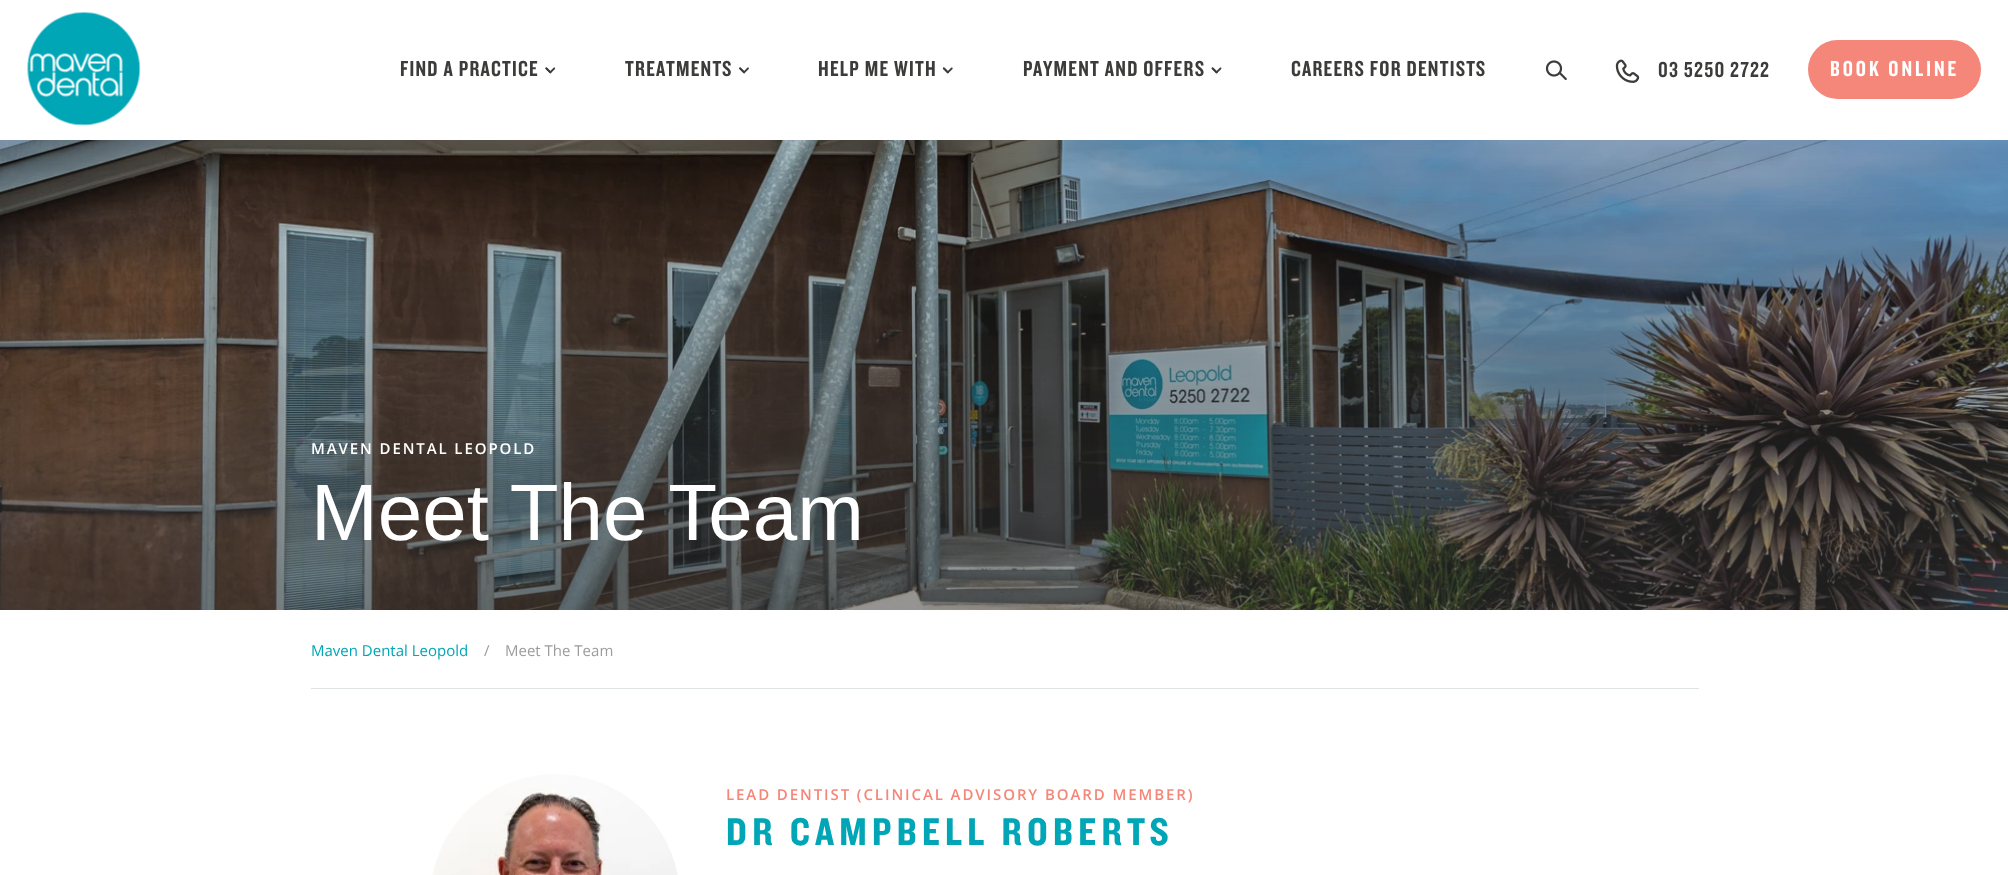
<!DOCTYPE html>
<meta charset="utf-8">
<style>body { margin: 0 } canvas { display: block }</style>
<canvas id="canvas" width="2008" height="875"></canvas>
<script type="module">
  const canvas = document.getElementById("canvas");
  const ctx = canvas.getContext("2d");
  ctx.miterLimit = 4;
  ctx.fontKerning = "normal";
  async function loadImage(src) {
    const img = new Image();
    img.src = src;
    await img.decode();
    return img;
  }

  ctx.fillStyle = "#ffffff";
  ctx.fillRect(0, 0, 2008, 875);
  ctx.drawImage(await loadImage("img1.png"), 27, 12, 114, 114);
  ctx.letterSpacing = "1.25px";
  ctx.font = "22.5px 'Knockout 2'";
  ctx.fillStyle = "#3c3c3b";
  ctx.fillText("FIND A PRACTICE", 400, 76);
  ctx.drawImage(await loadImage("img2.png"), 545, 67, 11, 7);
  ctx.fillText("TREATMENTS", 625, 76);
  ctx.drawImage(await loadImage("img3.png"), 739, 67, 10, 7);
  ctx.fillText("HELP ME WITH", 818, 76);
  ctx.drawImage(await loadImage("img4.png"), 942, 67, 11, 7);
  ctx.fillText("PAYMENT AND OFFERS", 1023, 76);
  ctx.drawImage(await loadImage("img5.png"), 1211, 67, 11, 7);
  ctx.fillText("CAREERS FOR DENTISTS", 1291, 76);
  ctx.drawImage(await loadImage("img6.png"), 1545, 60, 22, 21);
  ctx.drawImage(await loadImage("img7.png"), 1615, 59, 25, 24);
  ctx.fillText("03 5250 2722", 1658, 77);
  ctx.fillStyle = "#f5877a";
  ctx.beginPath();
  ctx.roundRect(1809.5, 41.5, 170, 56, 28);
  ctx.fill();
  ctx.strokeStyle = "#f5877a";
  ctx.lineWidth = 3;
  ctx.stroke();
  ctx.letterSpacing = "3px";
  ctx.fillStyle = "#ffffff";
  ctx.fillText("BOOK ONLINE", 1830, 76);
  ctx.drawImage(await loadImage("img8.png"), 0, 140, 2008, 470);
  ctx.letterSpacing = "1.9px";
  ctx.font = "600 15px Open Sans";
  ctx.fillText("MAVEN DENTAL LEOPOLD", 311, 454);
  ctx.letterSpacing = "0px";
  ctx.font = "80px Liberation Sans";
  ctx.fillText("Meet The Team", 311, 540);
  ctx.fillStyle = "#dee3e3";
  ctx.fillRect(311, 688, 1388, 1);
  ctx.font = "15px Open Sans";
  ctx.fillStyle = "#00a6b6";
  ctx.fillText("Maven Dental Leopold", 311, 656);
  ctx.fillStyle = "#9c9c9c";
  ctx.fillText("/", 484, 656);
  ctx.fillText("Meet The Team", 505, 656);
  ctx.drawImage(await loadImage("img9.png"), 432, 774, 246, 101);
  ctx.letterSpacing = "1.9px";
  ctx.font = "600 15px Open Sans";
  ctx.fillStyle = "#f5877a";
  ctx.fillText("LEAD DENTIST (CLINICAL ADVISORY BOARD MEMBER)", 726, 800);
  ctx.letterSpacing = "5.25px";
  ctx.font = "40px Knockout";
  ctx.fillStyle = "#00a6b6";
  ctx.fillText("DR CAMPBELL ROBERTS", 726, 845);
</script>
